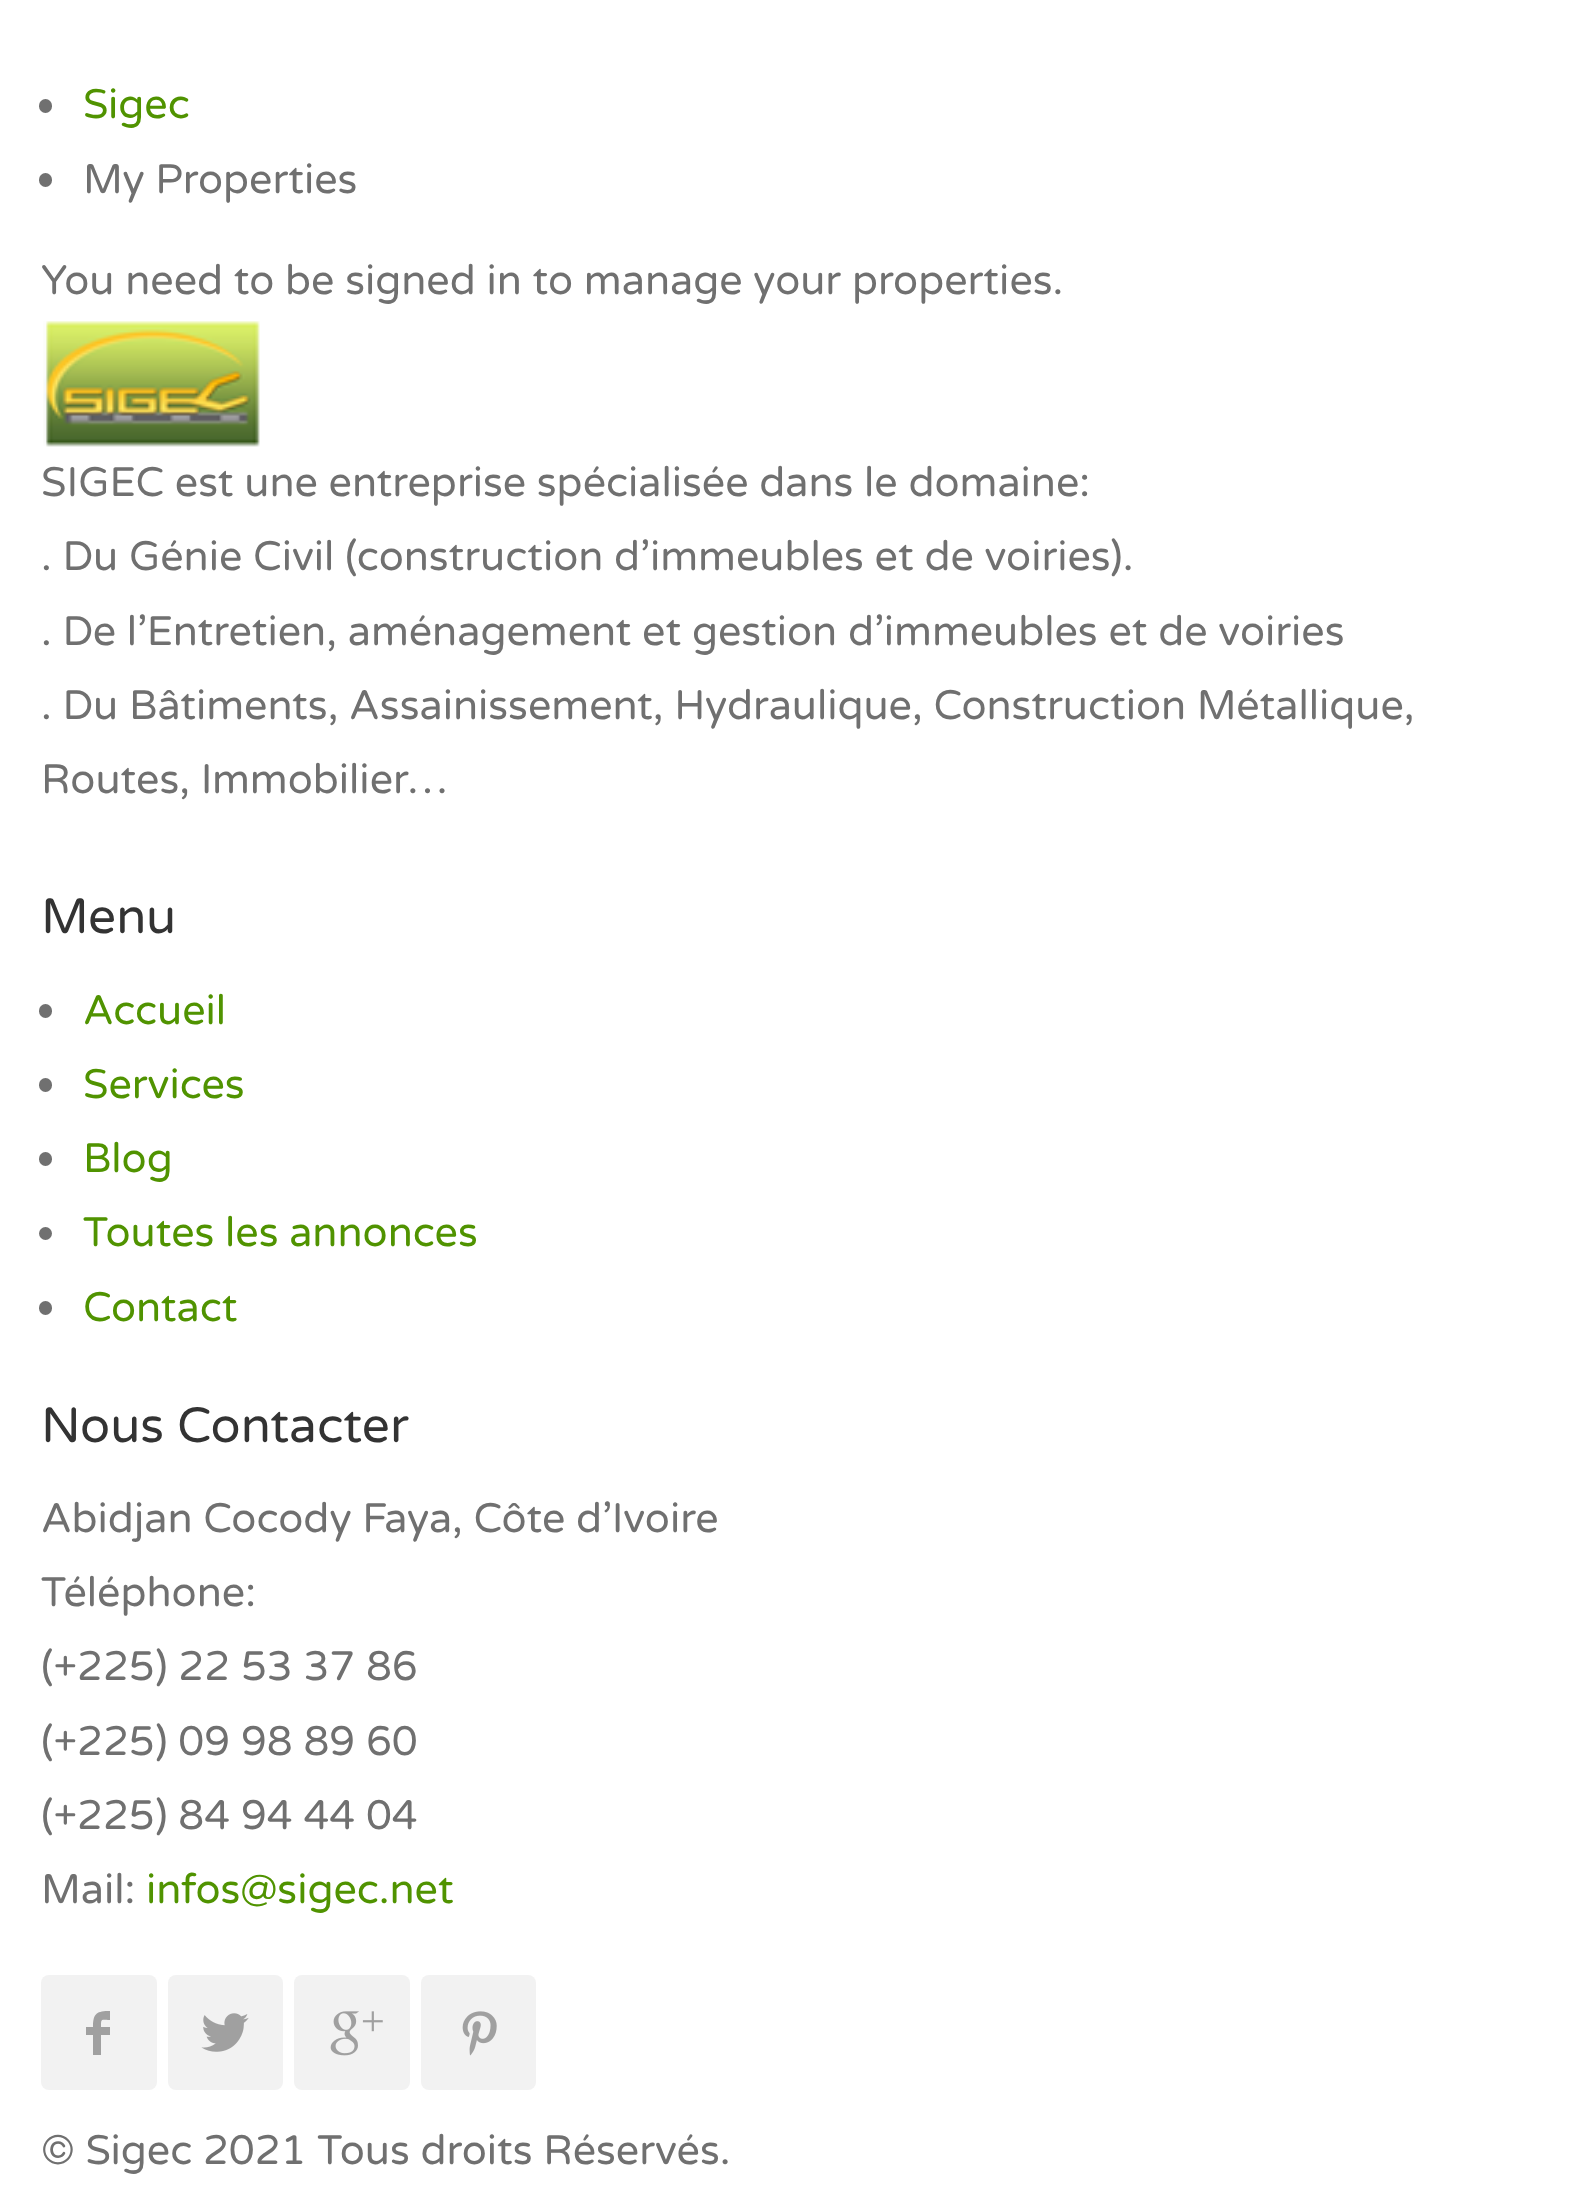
<!DOCTYPE html>
<meta charset="utf-8">
<style>body { margin: 0 } canvas { display: block }</style>
<canvas id="canvas" width="1576" height="2189"></canvas>
<script type="module">
  const canvas = document.getElementById("canvas");
  const ctx = canvas.getContext("2d");
  ctx.miterLimit = 4;
  ctx.fontKerning = "normal";
  async function loadImage(src) {
    const img = new Image();
    img.src = src;
    await img.decode();
    return img;
  }

  ctx.fillStyle = "#ffffff";
  ctx.fillRect(0, 0, 1576, 2189);
  ctx.fillStyle = "#707070";
  ctx.beginPath();
  ctx.roundRect(39, 99, 13, 14, 6.5);
  ctx.fill();
  ctx.font = "41.25px Varela Round";
  ctx.fillStyle = "#509300";
  ctx.fillText("Sigec", 83, 118);
  ctx.fillStyle = "#707070";
  ctx.beginPath();
  ctx.roundRect(39, 173, 13, 14, 6.5);
  ctx.fill();
  ctx.fillText("My Properties", 83, 193);
  ctx.fillText("You need to be signed in to manage your properties.", 41, 294);
  ctx.drawImage(await loadImage("img1.png"), 43, 321, 217, 126);
  ctx.fillText("SIGEC est une entreprise spécialisée dans le domaine:", 41, 496);
  ctx.fillText(". Du Génie Civil (construction d’immeubles et de voiries).", 41, 570);
  ctx.fillText(". De l’Entretien, aménagement et gestion d’immeubles et de voiries", 41, 645);
  ctx.fillText(". Du Bâtiments, Assainissement, Hydraulique, Construction Métallique,", 41, 719);
  ctx.fillText("Routes, Immobilier…", 41, 793);
  ctx.font = "49.5px Varela Round";
  ctx.fillStyle = "#333333";
  ctx.fillText("Menu", 41, 933);
  ctx.fillStyle = "#707070";
  ctx.beginPath();
  ctx.roundRect(39, 1004, 13, 14, 6.5);
  ctx.fill();
  ctx.font = "41.25px Varela Round";
  ctx.fillStyle = "#509300";
  ctx.fillText("Accueil", 83, 1024);
  ctx.fillStyle = "#707070";
  ctx.beginPath();
  ctx.roundRect(39, 1078, 13, 14, 6.5);
  ctx.fill();
  ctx.fillStyle = "#509300";
  ctx.fillText("Services", 83, 1098);
  ctx.fillStyle = "#707070";
  ctx.beginPath();
  ctx.roundRect(39, 1152, 13, 14, 6.5);
  ctx.fill();
  ctx.fillStyle = "#509300";
  ctx.fillText("Blog", 83, 1172);
  ctx.fillStyle = "#707070";
  ctx.beginPath();
  ctx.arc(45.5, 1233.5, 6.5, 0, Math.PI * 2);
  ctx.fill();
  ctx.fillStyle = "#509300";
  ctx.fillText("Toutes les annonces", 83, 1246);
  ctx.fillStyle = "#707070";
  ctx.beginPath();
  ctx.roundRect(39, 1301, 13, 14, 6.5);
  ctx.fill();
  ctx.fillStyle = "#509300";
  ctx.fillText("Contact", 83, 1321);
  ctx.font = "49.5px Varela Round";
  ctx.fillStyle = "#333333";
  ctx.fillText("Nous Contacter", 41, 1442);
  ctx.font = "41.25px Varela Round";
  ctx.fillStyle = "#707070";
  ctx.fillText("Abidjan Cocody Faya, Côte d’Ivoire", 41, 1532);
  ctx.fillText("Téléphone:", 41, 1606);
  ctx.fillText("(+225) 22 53 37 86", 41, 1680);
  ctx.fillText("(+225) 09 98 89 60", 41, 1755);
  ctx.fillText("(+225) 84 94 44 04", 41, 1829);
  ctx.fillText("Mail:", 41, 1903);
  ctx.fillStyle = "#509300";
  ctx.fillText("infos@sigec.net", 146, 1903);
  ctx.fillStyle = "#f2f2f2";
  ctx.beginPath();
  ctx.roundRect(41, 1975, 116, 115, 8);
  ctx.fill();
  ctx.fillStyle = "#a0a0a0";
  ctx.beginPath();
  ctx.moveTo(86, 2035);
  ctx.lineTo(86, 2027);
  ctx.lineTo(93, 2027);
  ctx.bezierCurveTo(93, 2013, 97, 2011, 110, 2011);
  ctx.lineTo(110, 2020);
  ctx.bezierCurveTo(101, 2020, 101, 2018, 101, 2027);
  ctx.lineTo(110, 2027);
  ctx.lineTo(110, 2035);
  ctx.lineTo(101, 2035);
  ctx.lineTo(101, 2055);
  ctx.lineTo(93, 2055);
  ctx.lineTo(93, 2035);
  ctx.closePath();
  ctx.fill();
  ctx.fillStyle = "#f2f2f2";
  ctx.beginPath();
  ctx.roundRect(168, 1975, 115, 115, 8);
  ctx.fill();
  ctx.drawImage(await loadImage("img2.png"), 201, 2013, 48, 39);
  ctx.beginPath();
  ctx.roundRect(294, 1975, 116, 115, 8);
  ctx.fill();
  ctx.drawImage(await loadImage("img3.png"), 330, 2011, 53, 45);
  ctx.beginPath();
  ctx.roundRect(421, 1975, 115, 115, 8);
  ctx.fill();
  ctx.drawImage(await loadImage("img4.png"), 462, 2011, 35, 45);
  ctx.fillStyle = "#707070";
  ctx.fillText("© Sigec 2021 Tous droits Réservés.", 41, 2164);
</script>
